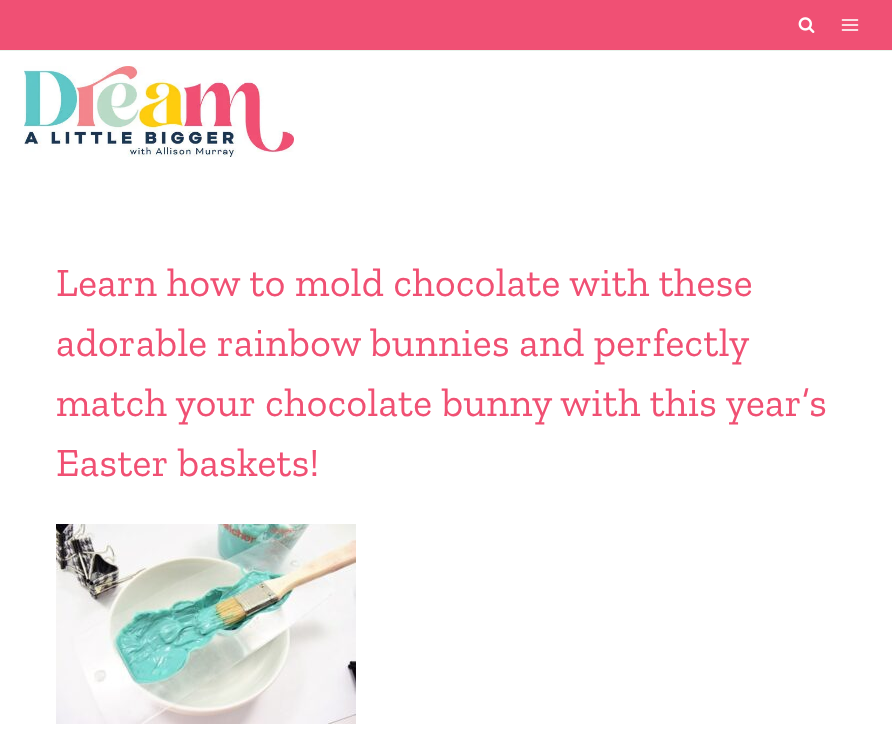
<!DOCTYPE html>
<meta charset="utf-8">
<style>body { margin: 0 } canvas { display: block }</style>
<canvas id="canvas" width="892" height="749"></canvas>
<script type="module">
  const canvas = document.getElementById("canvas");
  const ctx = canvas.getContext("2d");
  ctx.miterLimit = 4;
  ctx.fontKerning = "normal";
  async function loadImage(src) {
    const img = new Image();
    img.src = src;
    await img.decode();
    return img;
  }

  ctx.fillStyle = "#ffffff";
  ctx.fillRect(0, 0, 892, 749);
  ctx.fillStyle = "#f05074";
  ctx.fillRect(0, 0, 892, 50);
  ctx.fillStyle = "#e8f3ec";
  ctx.fillRect(0, 50, 892, 1);
  ctx.drawImage(await loadImage("img1.png"), 798, 17, 17, 16);
  ctx.drawImage(await loadImage("img2.png"), 841, 19, 18, 12);
  ctx.drawImage(await loadImage("img3.png"), 24, 66, 270, 91);
  ctx.letterSpacing = "0.35px";
  ctx.font = "40px Zilla Slab";
  ctx.fillStyle = "#f05073";
  ctx.fillText("Learn how to mold chocolate with these", 56, 296);
  ctx.fillText("adorable rainbow bunnies and perfectly", 56, 356);
  ctx.fillText("match your chocolate bunny with this year’s", 56, 416);
  ctx.fillText("Easter baskets!", 56, 476);
  ctx.drawImage(await loadImage("img4.png"), 56, 524, 300, 200);
</script>
